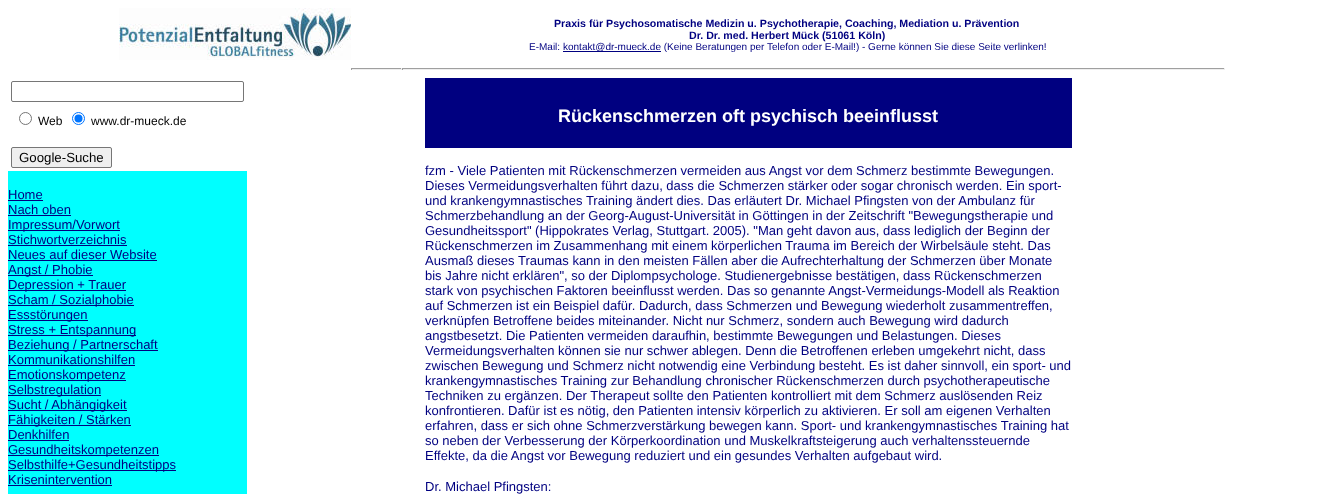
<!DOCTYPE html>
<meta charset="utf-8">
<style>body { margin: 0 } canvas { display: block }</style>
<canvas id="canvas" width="1343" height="494"></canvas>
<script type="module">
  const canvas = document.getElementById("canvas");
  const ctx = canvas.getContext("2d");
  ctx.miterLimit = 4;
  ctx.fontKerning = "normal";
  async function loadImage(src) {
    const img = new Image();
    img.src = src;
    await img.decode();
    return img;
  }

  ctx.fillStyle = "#ffffff";
  ctx.fillRect(0, 0, 1343, 494);
  ctx.drawImage(await loadImage("img1.png"), 119, 8, 232, 52);
  ctx.font = "bold 10.65px Liberation Sans";
  ctx.fillStyle = "#000080";
  ctx.fillText("Praxis für Psychosomatische Medizin u. Psychotherapie, Coaching, Mediation u. Prävention", 554, 27);
  ctx.fillText("Dr. Dr. med. Herbert Mück (51061 Köln)", 689, 39);
  ctx.font = "10px Liberation Sans";
  ctx.fillText("E-Mail:", 529, 50);
  ctx.fillRect(563, 51, 98, 1);
  ctx.fillText("kontakt@dr-mueck.de (Keine Beratungen per Telefon oder E-Mail!) - Gerne können Sie diese Seite verlinken!", 563, 50);
  ctx.fillStyle = "#9f9f9f";
  ctx.fillRect(351, 68, 874, 1);
  ctx.fillStyle = "#eeeeee";
  ctx.fillRect(401, 68, 1, 2);
  ctx.fillRect(351, 69, 51, 1);
  ctx.fillStyle = "#9f9f9f";
  ctx.fillRect(351, 68, 1, 2);
  ctx.fillStyle = "#eeeeee";
  ctx.fillRect(1224, 68, 1, 2);
  ctx.fillRect(402, 69, 823, 1);
  ctx.fillStyle = "#9f9f9f";
  ctx.fillRect(402, 68, 1, 2);
  ctx.fillStyle = "#00ffff";
  ctx.fillRect(8, 171, 239, 323);
  ctx.beginPath();
  ctx.roundRect(11.5, 81.5, 232, 20, 1.5);
  ctx.strokeStyle = "#767676";
  ctx.stroke();
  ctx.beginPath();
  ctx.arc(25.5, 118.5, 6, 0, Math.PI * 2);
  ctx.stroke();
  ctx.font = "12px Liberation Sans";
  ctx.fillStyle = "#000000";
  ctx.fillText("Web", 38, 125);
  ctx.beginPath();
  ctx.arc(78.5, 118.5, 6, 0, Math.PI * 2);
  ctx.strokeStyle = "#0075ff";
  ctx.stroke();
  ctx.fillStyle = "#0075ff";
  ctx.beginPath();
  ctx.arc(78.5, 118.5, 4, 0, Math.PI * 2);
  ctx.fill();
  ctx.fillStyle = "#000000";
  ctx.fillText("www.dr-mueck.de", 91, 125);
  ctx.fillStyle = "#efefef";
  ctx.beginPath();
  ctx.roundRect(11.5, 147.5, 100, 20, 1.5);
  ctx.fill();
  ctx.strokeStyle = "#767676";
  ctx.stroke();
  ctx.font = "13.25px Liberation Sans";
  ctx.fillStyle = "#000000";
  ctx.fillText("Google-Suche", 19, 162);
  ctx.font = "13px Liberation Sans";
  ctx.fillStyle = "#000080";
  ctx.fillText("Home", 8, 199);
  ctx.fillRect(8, 200, 35, 1);
  ctx.fillText("Nach oben", 8, 214);
  ctx.fillRect(8, 215, 63, 1);
  ctx.fillRect(8, 230, 112, 1);
  ctx.fillText("Impressum/Vorwort", 8, 229);
  ctx.fillText("Stichwortverzeichnis", 8, 244);
  ctx.fillRect(8, 245, 119, 1);
  ctx.fillText("Neues auf dieser Website", 8, 259);
  ctx.fillRect(8, 260, 149, 1);
  ctx.fillRect(8, 275, 85, 1);
  ctx.fillText("Angst / Phobie", 8, 274);
  ctx.fillRect(8, 290, 118, 1);
  ctx.fillText("Depression + Trauer", 8, 289);
  ctx.fillRect(8, 305, 126, 1);
  ctx.fillText("Scham / Sozialphobie", 8, 304);
  ctx.fillRect(8, 320, 80, 1);
  ctx.fillText("Essstörungen", 8, 319);
  ctx.fillRect(8, 335, 128, 1);
  ctx.fillText("Stress + Entspannung", 8, 334);
  ctx.fillRect(8, 350, 150, 1);
  ctx.fillText("Beziehung / Partnerschaft", 8, 349);
  ctx.fillText("Kommunikationshilfen", 8, 364);
  ctx.fillRect(8, 365, 127, 1);
  ctx.fillRect(8, 380, 118, 1);
  ctx.fillText("Emotionskompetenz", 8, 379);
  ctx.fillRect(8, 395, 93, 1);
  ctx.fillText("Selbstregulation", 8, 394);
  ctx.fillRect(8, 410, 119, 1);
  ctx.fillText("Sucht / Abhängigkeit", 8, 409);
  ctx.fillRect(8, 425, 123, 1);
  ctx.fillText("Fähigkeiten / Stärken", 8, 424);
  ctx.fillText("Denkhilfen", 8, 439);
  ctx.fillRect(8, 440, 61, 1);
  ctx.fillRect(8, 455, 151, 1);
  ctx.fillText("Gesundheitskompetenzen", 8, 454);
  ctx.fillRect(8, 470, 168, 1);
  ctx.fillText("Selbsthilfe+Gesundheitstipps", 8, 469);
  ctx.fillText("Krisenintervention", 8, 484);
  ctx.fillRect(8, 485, 104, 1);
  ctx.fillRect(425, 78, 647, 70);
  ctx.font = "bold 18px Liberation Sans";
  ctx.fillStyle = "#ffffff";
  ctx.fillText("Rückenschmerzen oft psychisch beeinflusst", 558, 122);
  ctx.font = "13px Liberation Sans";
  ctx.fillStyle = "#000080";
  ctx.fillText("fzm - Viele Patienten mit Rückenschmerzen vermeiden aus Angst vor dem Schmerz bestimmte Bewegungen.", 425, 175);
  ctx.fillText("Dieses Vermeidungsverhalten führt dazu, dass die Schmerzen stärker oder sogar chronisch werden. Ein sport-", 425, 190);
  ctx.fillText("und krankengymnastisches Training ändert dies. Das erläutert Dr. Michael Pfingsten von der Ambulanz für", 425, 205);
  ctx.fillText("Schmerzbehandlung an der Georg-August-Universität in Göttingen in der Zeitschrift \"Bewegungstherapie und", 425, 220);
  ctx.fillText("Gesundheitssport\" (Hippokrates Verlag, Stuttgart. 2005). \"Man geht davon aus, dass lediglich der Beginn der", 425, 235);
  ctx.fillText("Rückenschmerzen im Zusammenhang mit einem körperlichen Trauma im Bereich der Wirbelsäule steht. Das", 425, 250);
  ctx.fillText("Ausmaß dieses Traumas kann in den meisten Fällen aber die Aufrechterhaltung der Schmerzen über Monate", 425, 265);
  ctx.fillText("bis Jahre nicht erklären\", so der Diplompsychologe. Studienergebnisse bestätigen, dass Rückenschmerzen", 425, 280);
  ctx.fillText("stark von psychischen Faktoren beeinflusst werden. Das so genannte Angst-Vermeidungs-Modell als Reaktion", 425, 295);
  ctx.fillText("auf Schmerzen ist ein Beispiel dafür. Dadurch, dass Schmerzen und Bewegung wiederholt zusammentreffen,", 425, 310);
  ctx.fillText("verknüpfen Betroffene beides miteinander. Nicht nur Schmerz, sondern auch Bewegung wird dadurch", 425, 325);
  ctx.fillText("angstbesetzt. Die Patienten vermeiden daraufhin, bestimmte Bewegungen und Belastungen. Dieses", 425, 340);
  ctx.fillText("Vermeidungsverhalten können sie nur schwer ablegen. Denn die Betroffenen erleben umgekehrt nicht, dass", 425, 355);
  ctx.fillText("zwischen Bewegung und Schmerz nicht notwendig eine Verbindung besteht. Es ist daher sinnvoll, ein sport- und", 425, 370);
  ctx.fillText("krankengymnastisches Training zur Behandlung chronischer Rückenschmerzen durch psychotherapeutische", 425, 385);
  ctx.fillText("Techniken zu ergänzen. Der Therapeut sollte den Patienten kontrolliert mit dem Schmerz auslösenden Reiz", 425, 400);
  ctx.fillText("konfrontieren. Dafür ist es nötig, den Patienten intensiv körperlich zu aktivieren. Er soll am eigenen Verhalten", 425, 415);
  ctx.fillText("erfahren, dass er sich ohne Schmerzverstärkung bewegen kann. Sport- und krankengymnastisches Training hat", 425, 430);
  ctx.fillText("so neben der Verbesserung der Körperkoordination und Muskelkraftsteigerung auch verhaltenssteuernde", 425, 445);
  ctx.fillText("Effekte, da die Angst vor Bewegung reduziert und ein gesundes Verhalten aufgebaut wird.", 425, 460);
  ctx.fillText("Dr. Michael Pfingsten:", 425, 491);
</script>
